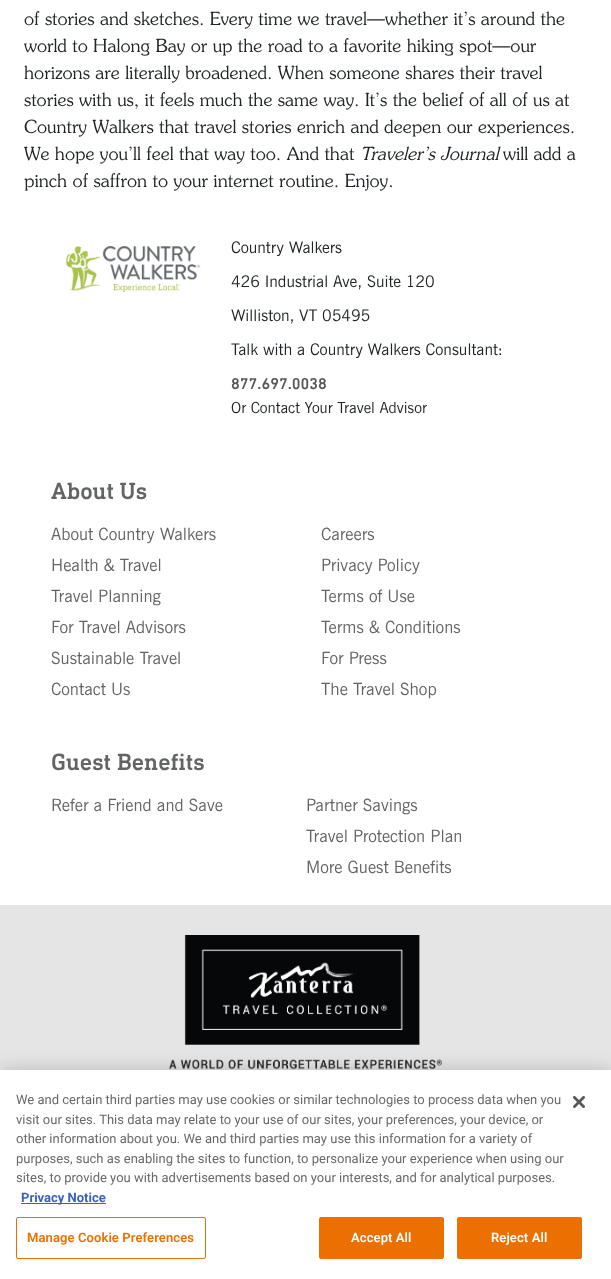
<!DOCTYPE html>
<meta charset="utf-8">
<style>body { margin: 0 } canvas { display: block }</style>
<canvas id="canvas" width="611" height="1279"></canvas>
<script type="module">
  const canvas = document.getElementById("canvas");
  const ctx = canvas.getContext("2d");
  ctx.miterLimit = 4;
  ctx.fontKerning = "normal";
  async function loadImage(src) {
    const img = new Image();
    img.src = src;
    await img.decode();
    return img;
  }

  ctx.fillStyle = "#ffffff";
  ctx.fillRect(0, 0, 611, 1279);
  ctx.font = "18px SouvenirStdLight";
  ctx.fillStyle = "#212529";
  ctx.fillText("of stories and sketches. Every time we travel—whether it’s around the", 24, 25);
  ctx.fillText("world to Halong Bay or up the road to a favorite hiking spot—our", 24, 52);
  ctx.fillText("horizons are literally broadened. When someone shares their travel", 24, 79);
  ctx.fillText("stories with us, it feels much the same way. It’s the belief of all of us at", 24, 106);
  ctx.fillText("Country Walkers that travel stories enrich and deepen our experiences.", 24, 133);
  ctx.fillText("We hope you’ll feel that way too. And that", 24, 160);
  ctx.font = "italic 18px SouvenirStdLight";
  ctx.fillText("Traveler’s Journal", 360, 160);
  ctx.font = "18px SouvenirStdLight";
  ctx.fillText("will add a", 503, 160);
  ctx.fillText("pinch of saffron to your internet routine. Enjoy.", 24, 187);
  ctx.drawImage(await loadImage("img1.png"), 65, 246, 136, 46);
  ctx.font = "16px 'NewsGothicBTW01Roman'";
  ctx.fillText("Country Walkers", 231, 253);
  ctx.fillText("426 Industrial Ave, Suite 120", 231, 287);
  ctx.fillText("Williston, VT 05495", 231, 321);
  ctx.fillText("Talk with a Country Walkers Consultant:", 231, 355);
  ctx.font = "500 16px 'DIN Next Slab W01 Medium'";
  ctx.fillStyle = "#585858";
  ctx.fillText("877.697.0038", 231, 389);
  ctx.font = "15.25px 'NewsGothicBTW01Roman'";
  ctx.fillStyle = "#212529";
  ctx.fillText("Or Contact Your Travel Advisor", 231, 413);
  ctx.font = "500 24px 'DIN Next Slab W01 Medium'";
  ctx.fillStyle = "#636466";
  ctx.fillText("About Us", 51, 499);
  ctx.font = "17px 'NewsGothicBTW01Roman'";
  ctx.fillText("About Country Walkers", 51, 540);
  ctx.fillText("Health & Travel", 51, 571);
  ctx.fillText("Travel Planning", 51, 602);
  ctx.fillText("For Travel Advisors", 51, 633);
  ctx.fillText("Sustainable Travel", 51, 664);
  ctx.fillText("Contact Us", 51, 695);
  ctx.fillText("Careers", 321, 540);
  ctx.fillText("Privacy Policy", 321, 571);
  ctx.fillText("Terms of Use", 321, 602);
  ctx.fillText("Terms & Conditions", 321, 633);
  ctx.fillText("For Press", 321, 664);
  ctx.fillText("The Travel Shop", 321, 695);
  ctx.font = "500 24px 'DIN Next Slab W01 Medium'";
  ctx.fillText("Guest Benefits", 51, 770);
  ctx.font = "17px 'NewsGothicBTW01Roman'";
  ctx.fillText("Refer a Friend and Save", 51, 811);
  ctx.fillText("Partner Savings", 306, 811);
  ctx.fillText("Travel Protection Plan", 306, 842);
  ctx.fillText("More Guest Benefits", 306, 873);
  ctx.fillStyle = "#e5e5e5";
  ctx.fillRect(0, 905, 611, 165);
  ctx.drawImage(await loadImage("img2.png"), 169, 935, 273, 135);
  ctx.fillStyle = "rgba(0, 0, 0, 0.2)";
  ctx.filter = "blur(9px)";
  ctx.beginPath();
  ctx.rect(0, 1070, 611, 209);
  ctx.fill();
  ctx.filter = "none";
  ctx.fillStyle = "#ffffff";
  ctx.fillRect(0, 1070, 611, 209);
  ctx.font = "13px Roboto";
  ctx.fillStyle = "#696969";
  ctx.fillText("We and certain third parties may use cookies or similar technologies to process data when you", 16, 1104);
  ctx.fillText("visit our sites. This data may relate to your use of our sites, your preferences, your device, or", 16, 1124);
  ctx.fillText("other information about you. We and third parties may use this information for a variety of", 16, 1143);
  ctx.fillText("purposes, such as enabling the sites to function, to personalize your experience when using our", 16, 1163);
  ctx.fillText("sites, to provide you with advertisements based on your interests, and for analytical purposes.", 16, 1182);
  ctx.fillStyle = "#3860be";
  ctx.fillRect(21, 1203, 85, 1);
  ctx.font = "bold 13px Roboto";
  ctx.fillText("Privacy Notice", 21, 1202);
  ctx.beginPath();
  ctx.roundRect(16.5, 1217.5, 189, 41, 1.5);
  ctx.strokeStyle = "#ec7000";
  ctx.stroke();
  ctx.letterSpacing = "0.1px";
  ctx.font = "600 13px Roboto";
  ctx.fillStyle = "#ec7000";
  ctx.fillText("Manage Cookie Preferences", 27, 1242);
  ctx.beginPath();
  ctx.roundRect(319.5, 1217.5, 124, 41, 1.5);
  ctx.fill();
  ctx.stroke();
  ctx.fillStyle = "#ffffff";
  ctx.fillText("Accept All", 351, 1242);
  ctx.fillStyle = "#ec7000";
  ctx.beginPath();
  ctx.roundRect(457.5, 1217.5, 124, 41, 1.5);
  ctx.fill();
  ctx.stroke();
  ctx.fillStyle = "#ffffff";
  ctx.fillText("Reject All", 491, 1242);
  ctx.drawImage(await loadImage("img3.png"), 573, 1096, 12, 12);
</script>
